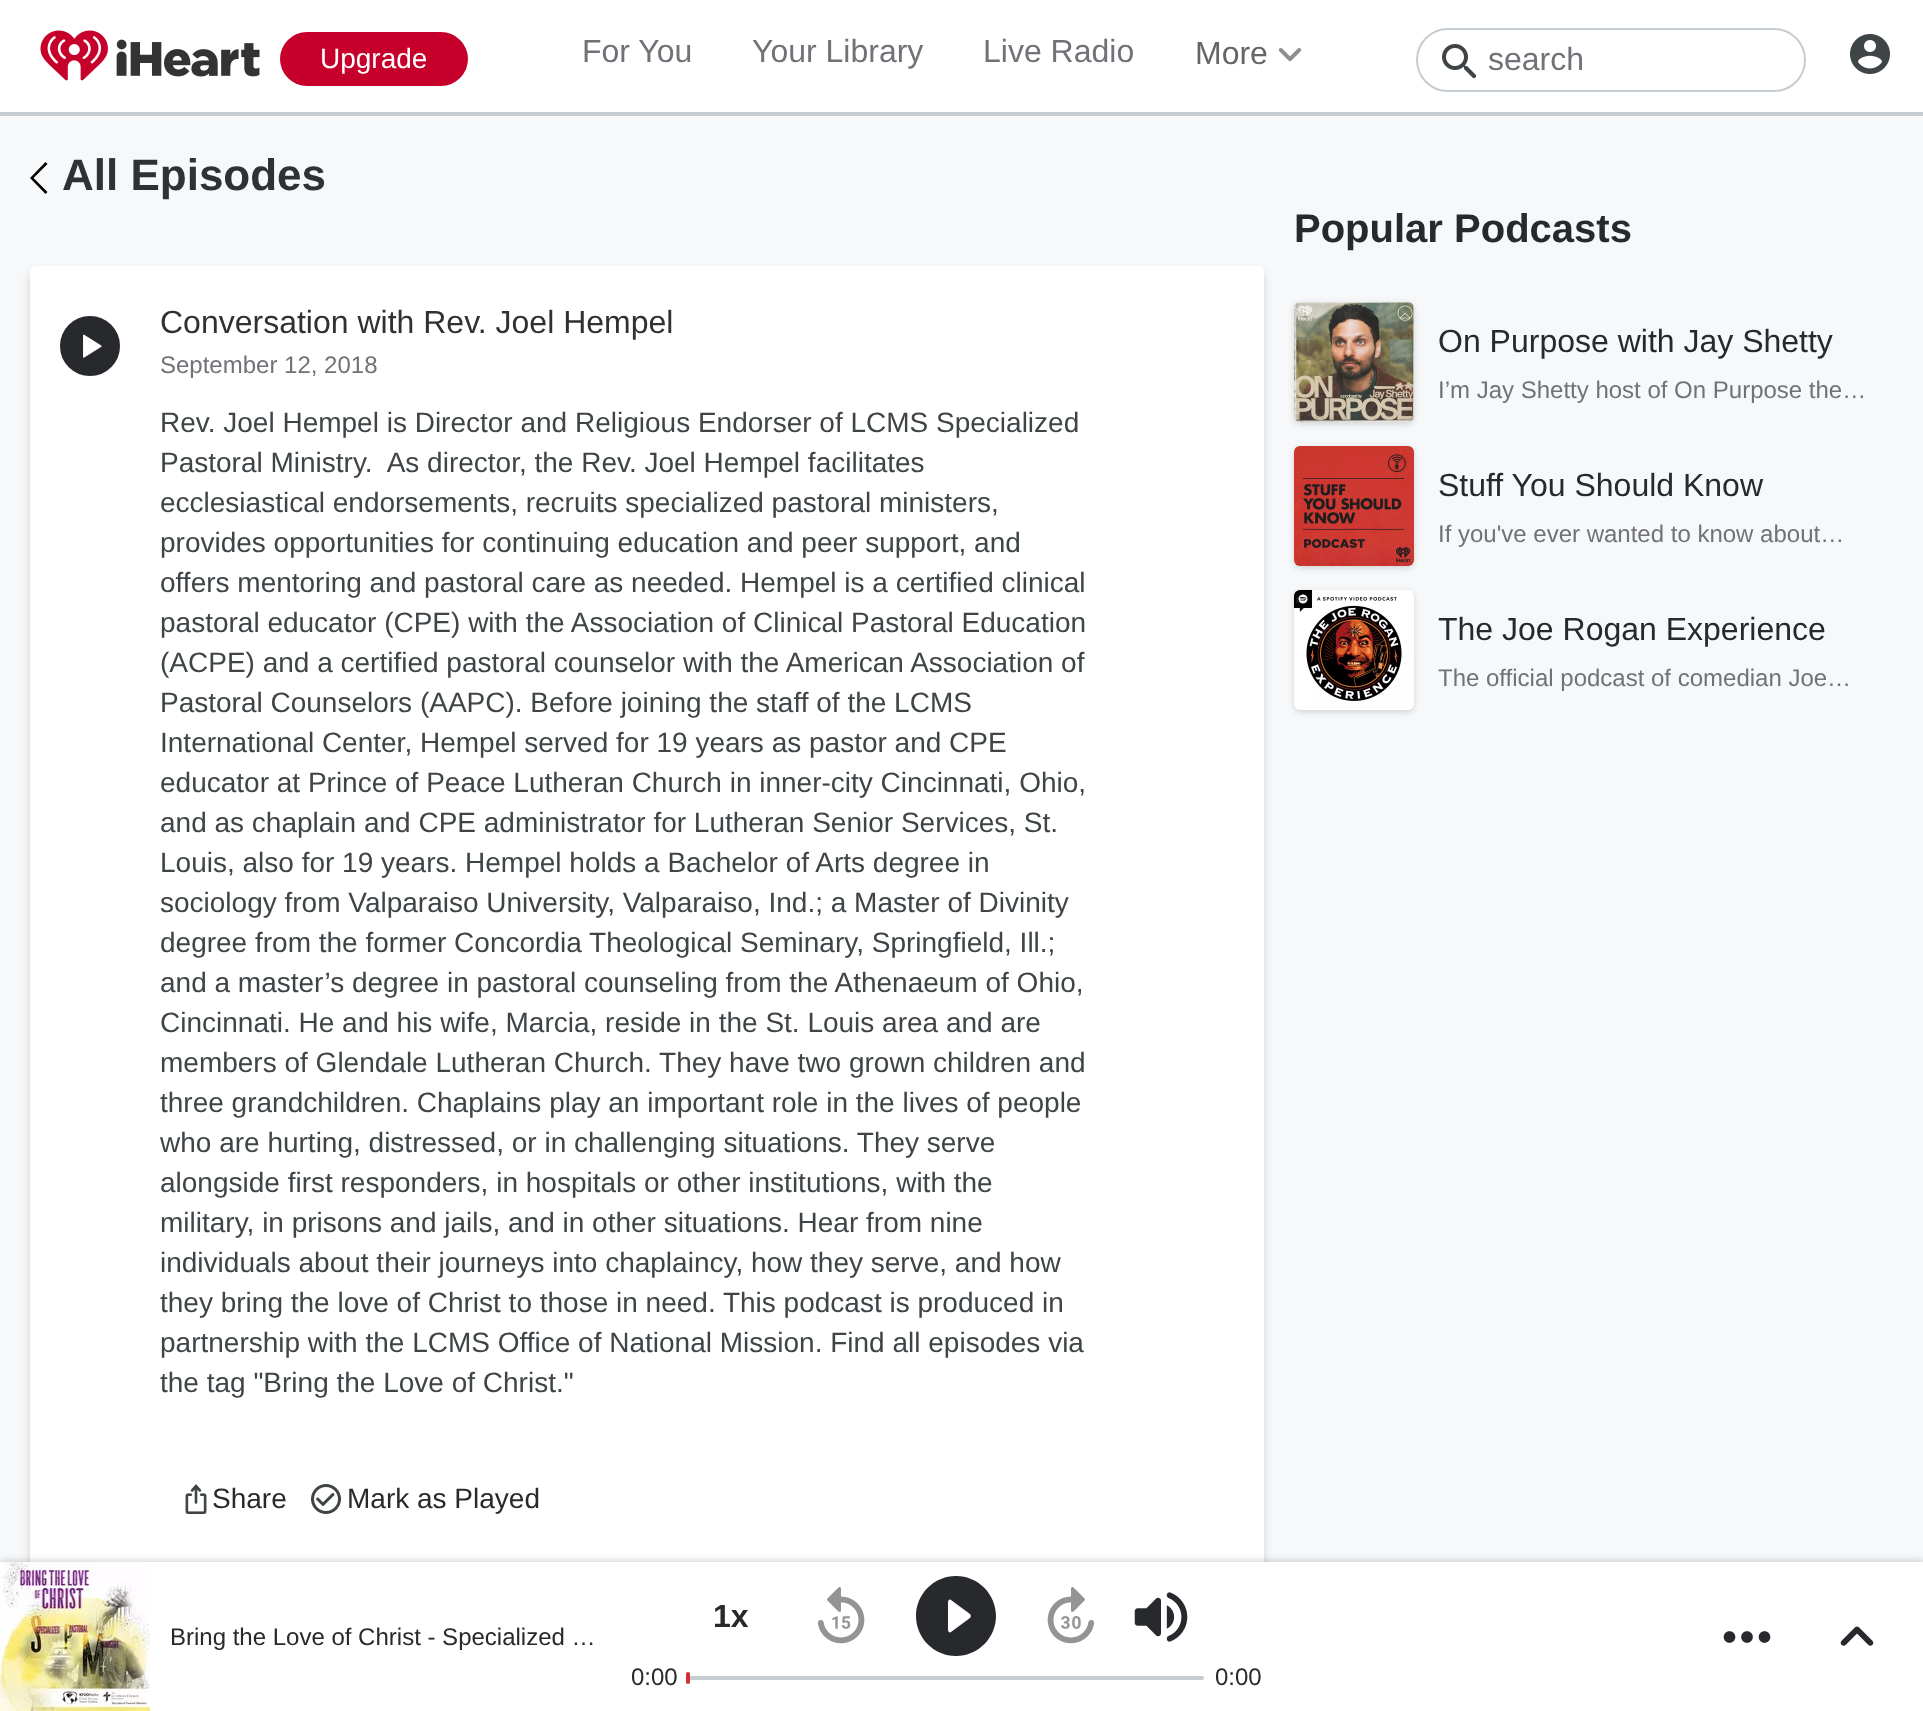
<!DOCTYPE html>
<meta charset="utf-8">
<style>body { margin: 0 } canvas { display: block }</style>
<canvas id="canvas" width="1923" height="1711"></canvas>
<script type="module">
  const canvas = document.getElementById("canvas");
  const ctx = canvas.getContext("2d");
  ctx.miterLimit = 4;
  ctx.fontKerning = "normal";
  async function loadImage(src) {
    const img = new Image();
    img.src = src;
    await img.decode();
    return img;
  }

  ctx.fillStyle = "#f6f8f9";
  ctx.fillRect(0, 0, 1923, 1711);
  ctx.fillStyle = "#ffffff";
  ctx.fillRect(0, 0, 1923, 112);
  ctx.fillStyle = "#c5cdd2";
  ctx.fillRect(0, 112, 1923, 4);
  ctx.drawImage(await loadImage("img1.png"), 40, 30, 220, 51);
  ctx.fillStyle = "#c6002b";
  ctx.beginPath();
  ctx.roundRect(280, 32, 188, 54, 27);
  ctx.fill();
  ctx.font = "28px Liberation Sans";
  ctx.fillStyle = "#ffffff";
  ctx.fillText("Upgrade", 320, 68);
  ctx.font = "32px Liberation Sans";
  ctx.fillStyle = "#717277";
  ctx.fillText("For You", 582, 62);
  ctx.fillText("Your Library", 752, 62);
  ctx.fillText("Live Radio", 983, 62);
  ctx.fillStyle = "#666666";
  ctx.fillText("More", 1195, 64);
  ctx.drawImage(await loadImage("img2.png"), 1278, 48, 24, 14);
  ctx.beginPath();
  ctx.roundRect(1417, 29, 388, 62, 31);
  ctx.strokeStyle = "#c5cdd2";
  ctx.lineWidth = 2;
  ctx.stroke();
  ctx.drawImage(await loadImage("img3.png"), 1442, 44, 35, 35);
  ctx.fillStyle = "#717277";
  ctx.fillText("search", 1488, 70);
  ctx.drawImage(await loadImage("img4.png"), 1850, 34, 40, 40);
  ctx.fillStyle = "#000000";
  ctx.beginPath();
  ctx.moveTo(45.5, 162);
  ctx.lineTo(30, 178);
  ctx.lineTo(45.5, 194);
  ctx.lineTo(47.5, 192);
  ctx.lineTo(33.5, 178);
  ctx.lineTo(47.5, 164);
  ctx.closePath();
  ctx.fill();
  ctx.font = "bold 44px Liberation Sans";
  ctx.fillStyle = "#2f3133";
  ctx.fillText("All Episodes", 62, 190);
  ctx.fillStyle = "rgba(0, 0, 0, 0.15)";
  ctx.filter = "blur(5px)";
  ctx.beginPath();
  ctx.roundRect(30, 272, 1234, 1322, 6);
  ctx.fill();
  ctx.filter = "none";
  ctx.fillStyle = "#ffffff";
  ctx.beginPath();
  ctx.roundRect(30, 266, 1234, 1322, 6);
  ctx.fill();
  ctx.fillStyle = "#27292d";
  ctx.beginPath();
  ctx.arc(90, 346, 29, 0, Math.PI * 2);
  ctx.fill();
  ctx.strokeStyle = "#27292d";
  ctx.stroke();
  ctx.drawImage(await loadImage("img5.png"), 83, 334, 19, 24);
  ctx.font = "32px Liberation Sans";
  ctx.fillStyle = "#2f3133";
  ctx.fillText("Conversation with Rev. Joel Hempel", 160, 333);
  ctx.font = "24px Liberation Sans";
  ctx.fillStyle = "#717277";
  ctx.fillText("September 12, 2018", 160, 373);
  ctx.font = "28px Liberation Sans";
  ctx.fillStyle = "#3f4447";
  ctx.fillText("Rev. Joel Hempel is Director and Religious Endorser of LCMS Specialized", 160, 432);
  ctx.fillText("Pastoral Ministry.  As director, the Rev. Joel Hempel facilitates", 160, 472);
  ctx.fillText("ecclesiastical endorsements, recruits specialized pastoral ministers,", 160, 512);
  ctx.fillText("provides opportunities for continuing education and peer support, and", 160, 552);
  ctx.fillText("offers mentoring and pastoral care as needed. Hempel is a certified clinical", 160, 592);
  ctx.fillText("pastoral educator (CPE) with the Association of Clinical Pastoral Education", 160, 632);
  ctx.fillText("(ACPE) and a certified pastoral counselor with the American Association of", 160, 672);
  ctx.fillText("Pastoral Counselors (AAPC). Before joining the staff of the LCMS", 160, 712);
  ctx.fillText("International Center, Hempel served for 19 years as pastor and CPE", 160, 752);
  ctx.fillText("educator at Prince of Peace Lutheran Church in inner-city Cincinnati, Ohio,", 160, 792);
  ctx.fillText("and as chaplain and CPE administrator for Lutheran Senior Services, St.", 160, 832);
  ctx.fillText("Louis, also for 19 years. Hempel holds a Bachelor of Arts degree in", 160, 872);
  ctx.fillText("sociology from Valparaiso University, Valparaiso, Ind.; a Master of Divinity", 160, 912);
  ctx.fillText("degree from the former Concordia Theological Seminary, Springfield, Ill.;", 160, 952);
  ctx.fillText("and a master’s degree in pastoral counseling from the Athenaeum of Ohio,", 160, 992);
  ctx.fillText("Cincinnati. He and his wife, Marcia, reside in the St. Louis area and are", 160, 1032);
  ctx.fillText("members of Glendale Lutheran Church. They have two grown children and", 160, 1072);
  ctx.fillText("three grandchildren. Chaplains play an important role in the lives of people", 160, 1112);
  ctx.fillText("who are hurting, distressed, or in challenging situations. They serve", 160, 1152);
  ctx.fillText("alongside first responders, in hospitals or other institutions, with the", 160, 1192);
  ctx.fillText("military, in prisons and jails, and in other situations. Hear from nine", 160, 1232);
  ctx.fillText("individuals about their journeys into chaplaincy, how they serve, and how", 160, 1272);
  ctx.fillText("they bring the love of Christ to those in need. This podcast is produced in", 160, 1312);
  ctx.fillText("partnership with the LCMS Office of National Mission. Find all episodes via", 160, 1352);
  ctx.fillText("the tag \"Bring the Love of Christ.\"", 160, 1392);
  ctx.drawImage(await loadImage("img6.png"), 185, 1484, 22, 30);
  ctx.fillStyle = "#27292d";
  ctx.fillText("Share", 212, 1508);
  ctx.drawImage(await loadImage("img7.png"), 311, 1484, 30, 30);
  ctx.fillText("Mark as Played", 347, 1508);
  ctx.font = "bold 40px Liberation Sans";
  ctx.fillText("Popular Podcasts", 1294, 242);
  ctx.fillStyle = "rgba(0, 0, 0, 0.15)";
  ctx.filter = "blur(3px)";
  ctx.beginPath();
  ctx.roundRect(1294, 304, 120, 120, 6);
  ctx.fill();
  ctx.filter = "none";
  ctx.drawImage(await loadImage("img8.png"), 1294, 302, 120, 120);
  ctx.font = "32px Liberation Sans";
  ctx.fillStyle = "#d6d3cb";
  ctx.fillText("“", 1294, 330);
  ctx.fillStyle = "#27292d";
  ctx.fillText("On Purpose with Jay Shetty", 1438, 352);
  ctx.font = "24px Liberation Sans";
  ctx.fillStyle = "#717277";
  ctx.fillText("I’m Jay Shetty host of On Purpose the…", 1438, 398);
  ctx.fillStyle = "rgba(0, 0, 0, 0.15)";
  ctx.filter = "blur(3px)";
  ctx.beginPath();
  ctx.roundRect(1294, 448, 120, 120, 6);
  ctx.fill();
  ctx.filter = "none";
  ctx.drawImage(await loadImage("img9.png"), 1294, 446, 120, 120);
  ctx.font = "32px Liberation Sans";
  ctx.fillStyle = "#27292d";
  ctx.fillText("Stuff You Should Know", 1438, 496);
  ctx.font = "24px Liberation Sans";
  ctx.fillStyle = "#717277";
  ctx.fillText("If you've ever wanted to know about…", 1438, 542);
  ctx.fillStyle = "rgba(0, 0, 0, 0.15)";
  ctx.filter = "blur(3px)";
  ctx.beginPath();
  ctx.roundRect(1294, 592, 120, 120, 6);
  ctx.fill();
  ctx.filter = "none";
  ctx.drawImage(await loadImage("img10.png"), 1294, 590, 120, 120);
  ctx.font = "32px Liberation Sans";
  ctx.fillStyle = "#161616";
  ctx.fillText("‘", 1294, 618);
  ctx.fillStyle = "#27292d";
  ctx.fillText("The Joe Rogan Experience", 1438, 640);
  ctx.font = "24px Liberation Sans";
  ctx.fillStyle = "#717277";
  ctx.fillText("The official podcast of comedian Joe…", 1438, 686);
  ctx.fillStyle = "rgba(0, 0, 0, 0.15)";
  ctx.filter = "blur(3px)";
  ctx.beginPath();
  ctx.rect(0, 1560, 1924, 150);
  ctx.fill();
  ctx.filter = "none";
  ctx.fillStyle = "#ffffff";
  ctx.fillRect(150, 1562, 1773, 149);
  ctx.drawImage(await loadImage("img11.png"), 0, 1562, 150, 149);
  ctx.fillStyle = "#27292d";
  ctx.fillText("Bring the Love of Christ - Specialized …", 170, 1645);
  ctx.font = "bold 32px Liberation Sans";
  ctx.fillText("1x", 713, 1627);
  ctx.drawImage(await loadImage("img12.png"), 817, 1587, 48, 57);
  ctx.beginPath();
  ctx.moveTo(956, 1576);
  ctx.bezierCurveTo(934, 1576, 916, 1594, 916, 1616);
  ctx.bezierCurveTo(916, 1638, 934, 1656, 956, 1656);
  ctx.bezierCurveTo(978, 1656, 996, 1638, 996, 1616);
  ctx.bezierCurveTo(996, 1594, 978, 1576, 956, 1576);
  ctx.closePath();
  ctx.moveTo(948, 1630);
  ctx.lineTo(948, 1602);
  ctx.bezierCurveTo(948, 1600, 950, 1599, 951, 1600);
  ctx.lineTo(970, 1614);
  ctx.bezierCurveTo(971, 1615, 971, 1617, 970, 1618);
  ctx.lineTo(951, 1632);
  ctx.bezierCurveTo(950, 1633, 948, 1632, 948, 1630);
  ctx.closePath();
  ctx.fill();
  ctx.drawImage(await loadImage("img13.png"), 1047, 1587, 48, 57);
  ctx.drawImage(await loadImage("img14.png"), 1134, 1592, 54, 50);
  ctx.font = "24px Liberation Sans";
  ctx.fillText("0:00", 631, 1685);
  ctx.fillStyle = "#c5cdd2";
  ctx.beginPath();
  ctx.roundRect(688, 1676, 516, 4, 2);
  ctx.fill();
  ctx.fillStyle = "#d52d37";
  ctx.beginPath();
  ctx.roundRect(686, 1672, 4, 12, 2);
  ctx.fill();
  ctx.fillStyle = "#27292d";
  ctx.fillText("0:00", 1215, 1685);
  ctx.drawImage(await loadImage("img15.png"), 1723, 1631, 48, 12);
  ctx.drawImage(await loadImage("img16.png"), 1840, 1626, 34, 20);
</script>
